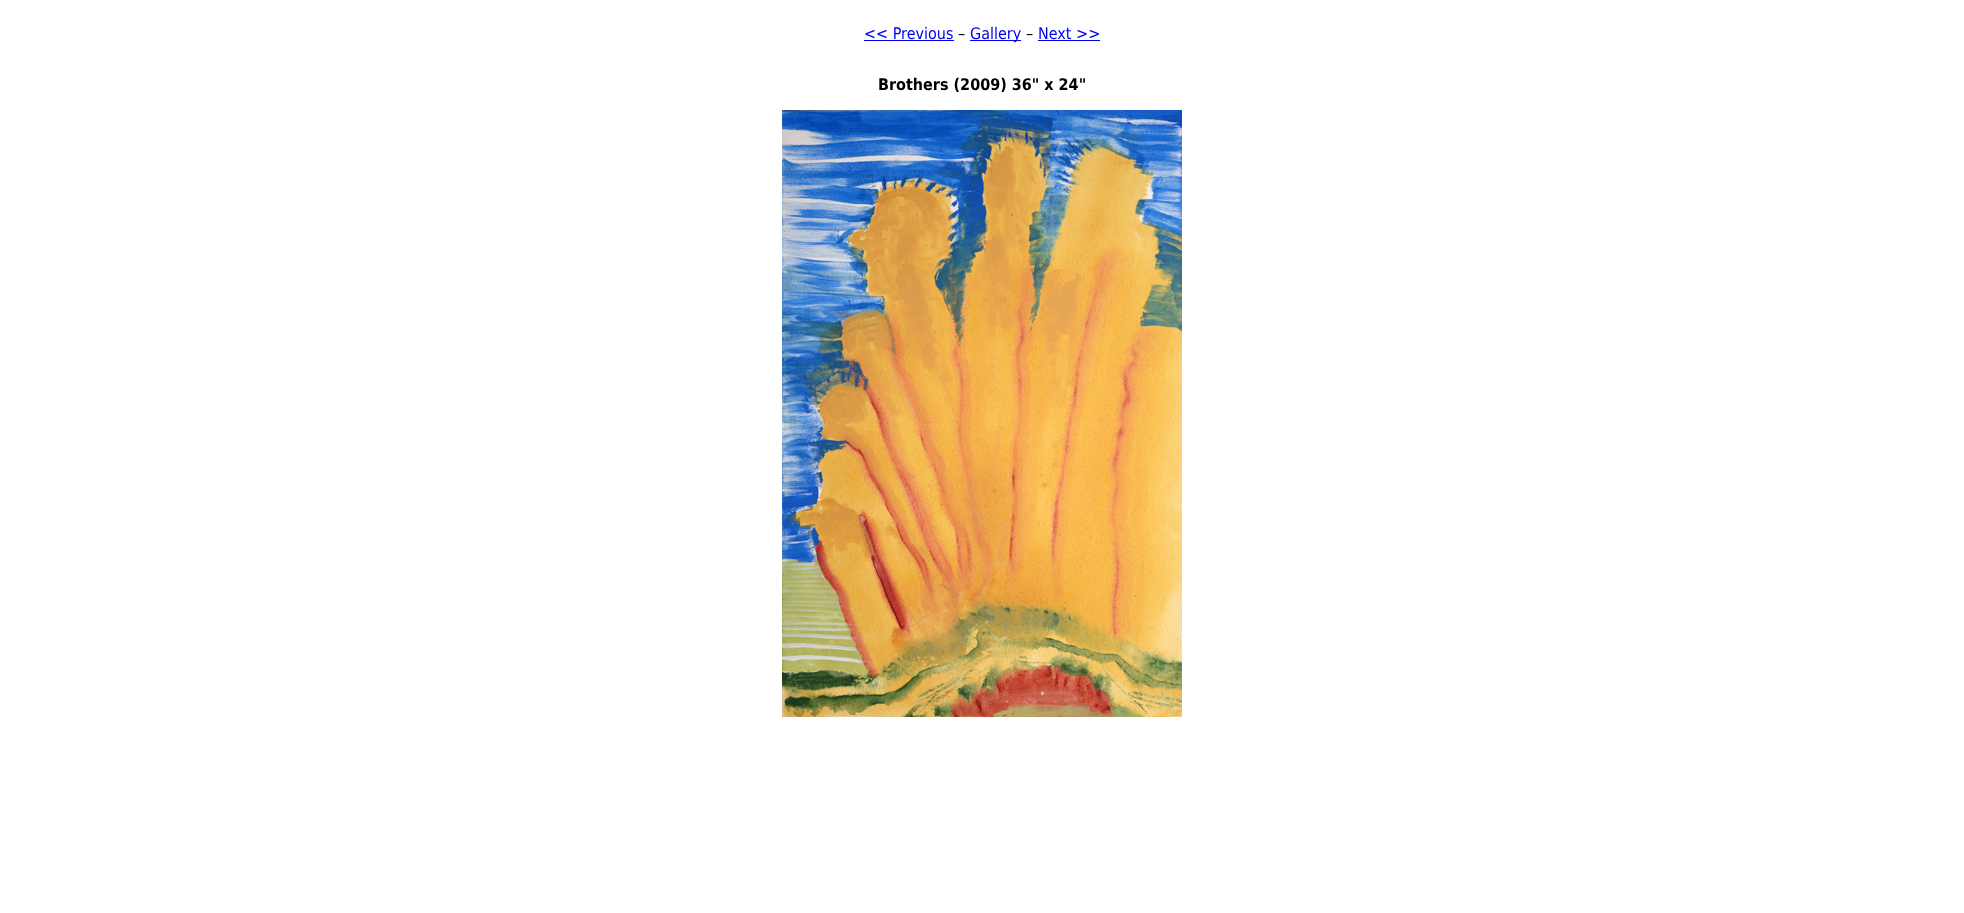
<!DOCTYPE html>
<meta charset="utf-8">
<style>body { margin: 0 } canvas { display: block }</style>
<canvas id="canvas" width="1964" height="913"></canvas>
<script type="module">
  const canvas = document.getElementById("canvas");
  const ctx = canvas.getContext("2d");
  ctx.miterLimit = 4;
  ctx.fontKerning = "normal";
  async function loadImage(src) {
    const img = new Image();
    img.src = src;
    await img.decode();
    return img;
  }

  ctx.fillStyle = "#ffffff";
  ctx.fillRect(0, 0, 1964, 913);
  ctx.font = "16px DejaVu Sans";
  ctx.fillStyle = "#0000ee";
  ctx.fillText("<< Previous", 864, 39);
  ctx.fillRect(864, 40, 90, 1);
  ctx.fillStyle = "#000000";
  ctx.fillText("–", 958, 39);
  ctx.fillStyle = "#0000ee";
  ctx.fillRect(970, 40, 51, 1);
  ctx.fillText("Gallery", 970, 39);
  ctx.fillStyle = "#000000";
  ctx.fillText("–", 1026, 39);
  ctx.fillStyle = "#0000ee";
  ctx.fillText("Next >>", 1038, 39);
  ctx.fillRect(1038, 40, 62, 1);
  ctx.font = "bold 16px DejaVu Sans";
  ctx.fillStyle = "#000000";
  ctx.fillText("Brothers (2009) 36\" x 24\"", 878, 90);
  ctx.drawImage(await loadImage("img1.png"), 782, 110, 400, 607);
</script>
